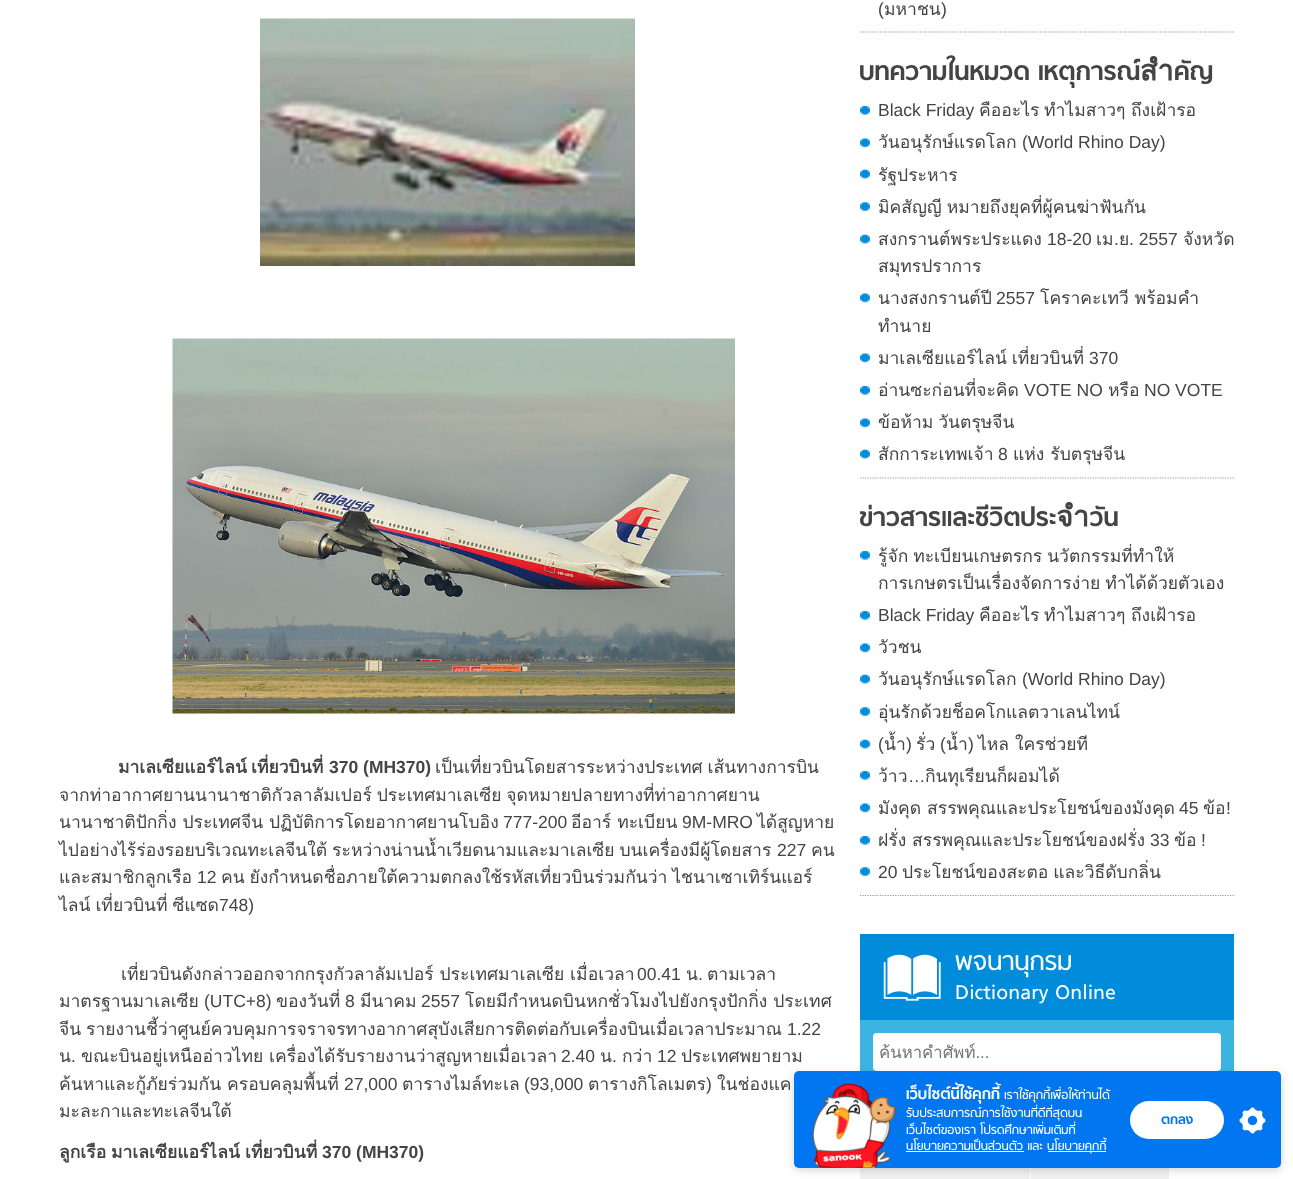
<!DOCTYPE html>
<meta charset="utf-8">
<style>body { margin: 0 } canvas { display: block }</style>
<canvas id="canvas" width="1293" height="1179"></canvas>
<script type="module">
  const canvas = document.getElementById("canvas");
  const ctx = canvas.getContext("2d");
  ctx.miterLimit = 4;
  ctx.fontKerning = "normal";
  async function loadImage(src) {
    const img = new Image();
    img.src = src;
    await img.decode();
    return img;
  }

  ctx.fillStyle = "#ffffff";
  ctx.fillRect(0, 0, 1293, 1179);
  ctx.drawImage(await loadImage("img1.png"), 260, 18, 375, 248);
  ctx.drawImage(await loadImage("img2.png"), 172, 338, 563, 376);
  ctx.font = "bold 17.5px Loma";
  ctx.fillStyle = "#444444";
  ctx.fillText("มาเลเซียแอร์ไลน์", 118, 773);
  ctx.fillText("เที่ยวบินที่", 251, 773);
  ctx.font = "bold 17.5px Liberation Sans";
  ctx.fillText("370 (MH370)", 329, 773);
  ctx.wordSpacing = "-1px";
  ctx.font = "17.5px Loma";
  ctx.fillText("เป็นเที่ยวบินโดยสารระหว่างประเทศ เส้นทางการบิน", 435, 773);
  ctx.fillText("จากท่าอากาศยานนานาชาติกัวลาลัมเปอร์ ประเทศมาเลเซีย จุดหมายปลายทางที่ท่าอากาศยาน", 59, 801);
  ctx.wordSpacing = "0px";
  ctx.fillText("นานาชาติปักกิ่ง ประเทศจีน ปฏิบัติการโดยอากาศยานโบอิง", 59, 828);
  ctx.font = "17.5px Liberation Sans";
  ctx.fillText("777-200", 503, 828);
  ctx.font = "17.5px Loma";
  ctx.fillText("อีอาร์ ทะเบียน", 571, 828);
  ctx.font = "17.5px Liberation Sans";
  ctx.fillText("9M-MRO", 682, 828);
  ctx.font = "17.5px Loma";
  ctx.fillText("ได้สูญหาย", 757, 828);
  ctx.wordSpacing = "-1px";
  ctx.fillText("ไปอย่างไร้ร่องรอยบริเวณทะเลจีนใต้ ระหว่างน่านน้ำเวียดนามและมาเลเซีย บนเครื่องมีผู้โดยสาร", 59, 856);
  ctx.wordSpacing = "0px";
  ctx.font = "17.5px Liberation Sans";
  ctx.fillText("227", 777, 856);
  ctx.font = "17.5px Loma";
  ctx.fillText("คน", 811, 856);
  ctx.fillText("และสมาชิกลูกเรือ", 59, 883);
  ctx.font = "17.5px Liberation Sans";
  ctx.fillText("12", 197, 883);
  ctx.wordSpacing = "-1px";
  ctx.font = "17.5px Loma";
  ctx.fillText("คน ยังกำหนดชื่อภายใต้ความตกลงใช้รหัสเที่ยวบินร่วมกันว่า ไชนาเซาเทิร์นแอร์", 221, 883);
  ctx.fillText("ไลน์ เที่ยวบินที่ ซีแซด", 59, 911);
  ctx.wordSpacing = "0px";
  ctx.font = "17.5px Liberation Sans";
  ctx.fillText("748)", 219, 911);
  ctx.font = "17.5px Loma";
  ctx.fillText("เที่ยวบินดังกล่าวออกจากกรุงกัวลาลัมเปอร์ ประเทศมาเลเซีย เมื่อเวลา", 121, 980);
  ctx.font = "17.5px Liberation Sans";
  ctx.fillText("00.41", 637, 980);
  ctx.font = "17.5px Loma";
  ctx.fillText("น", 686, 980);
  ctx.font = "17.5px Liberation Sans";
  ctx.fillText(".", 698, 980);
  ctx.font = "17.5px Loma";
  ctx.fillText("ตามเวลา", 707, 980);
  ctx.fillText("มาตรฐานมาเลเซีย", 59, 1007);
  ctx.font = "17.5px Liberation Sans";
  ctx.fillText("(UTC+8)", 204, 1007);
  ctx.font = "17.5px Loma";
  ctx.fillText("ของวันที่", 276, 1007);
  ctx.font = "17.5px Liberation Sans";
  ctx.fillText("8", 345, 1007);
  ctx.font = "17.5px Loma";
  ctx.fillText("มีนาคม", 360, 1007);
  ctx.font = "17.5px Liberation Sans";
  ctx.fillText("2557", 421, 1007);
  ctx.font = "17.5px Loma";
  ctx.fillText("โดยมีกำหนดบินหกชั่วโมงไปยังกรุงปักกิ่ง ประเทศ", 465, 1007);
  ctx.wordSpacing = "-1px";
  ctx.fillText("จีน รายงานชี้ว่าศูนย์ควบคุมการจราจรทางอากาศสุบังเสียการติดต่อกับเครื่องบินเมื่อเวลาประมาณ", 59, 1035);
  ctx.wordSpacing = "0px";
  ctx.font = "17.5px Liberation Sans";
  ctx.fillText("1.22", 787, 1035);
  ctx.font = "17.5px Loma";
  ctx.fillText("น", 59, 1062);
  ctx.font = "17.5px Liberation Sans";
  ctx.fillText(".", 71, 1062);
  ctx.font = "17.5px Loma";
  ctx.fillText("ขณะบินอยู่เหนืออ่าวไทย เครื่องได้รับรายงานว่าสูญหายเมื่อเวลา", 81, 1062);
  ctx.font = "17.5px Liberation Sans";
  ctx.fillText("2.40", 561, 1062);
  ctx.font = "17.5px Loma";
  ctx.fillText("น", 600, 1062);
  ctx.font = "17.5px Liberation Sans";
  ctx.fillText(".", 612, 1062);
  ctx.font = "17.5px Loma";
  ctx.fillText("กว่า", 622, 1062);
  ctx.font = "17.5px Liberation Sans";
  ctx.fillText("12", 657, 1062);
  ctx.font = "17.5px Loma";
  ctx.fillText("ประเทศพยายาม", 681, 1062);
  ctx.fillText("ค้นหาและกู้ภัยร่วมกัน ครอบคลุมพื้นที่", 59, 1090);
  ctx.font = "17.5px Liberation Sans";
  ctx.fillText("27,000", 344, 1090);
  ctx.font = "17.5px Loma";
  ctx.fillText("ตารางไมล์ทะเล", 402, 1090);
  ctx.font = "17.5px Liberation Sans";
  ctx.fillText("(93,000", 524, 1090);
  ctx.font = "17.5px Loma";
  ctx.fillText("ตารางกิโลเมตร", 588, 1090);
  ctx.font = "17.5px Liberation Sans";
  ctx.fillText(")", 706, 1090);
  ctx.font = "17.5px Loma";
  ctx.fillText("ในช่องแค", 717, 1090);
  ctx.fillText("มะละกาและทะเลจีนใต้", 59, 1117);
  ctx.font = "bold 17.5px Loma";
  ctx.fillText("ลูกเรือ", 59, 1158);
  ctx.fillText("มาเลเซียแอร์ไลน์", 111, 1158);
  ctx.fillText("เที่ยวบินที่", 245, 1158);
  ctx.font = "bold 17.5px Liberation Sans";
  ctx.fillText("370 (MH370)", 322, 1158);
  ctx.beginPath();
  ctx.moveTo(860, 32);
  ctx.lineTo(1234, 32);
  ctx.strokeStyle = "#999999";
  ctx.lineWidth = 1.2;
  ctx.setLineDash([1.25, 1.25]);
  ctx.stroke();
  ctx.font = "17.5px Liberation Sans";
  ctx.fillText("(", 878, 15);
  ctx.font = "17.5px Loma";
  ctx.fillText("มหาชน", 884, 15);
  ctx.font = "17.5px Liberation Sans";
  ctx.fillText(")", 941, 15);
  ctx.beginPath();
  ctx.moveTo(860, 478);
  ctx.lineTo(1234, 478);
  ctx.stroke();
  ctx.font = "bold 28.75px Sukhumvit";
  ctx.fillText("บทความในหมวด เหตุการณ์สำคัญ", 859, 80);
  ctx.drawImage(await loadImage("img3.png"), 860, 106, 10, 9);
  ctx.font = "17.5px Liberation Sans";
  ctx.fillText("Black Friday", 878, 116);
  ctx.font = "17.5px Loma";
  ctx.fillText("คืออะไร", 979, 116);
  ctx.fillText("ทำไมสาวๆ", 1044, 116);
  ctx.fillText("ถึงเฝ้ารอ", 1131, 116);
  ctx.drawImage(await loadImage("img4.png"), 860, 138, 10, 10);
  ctx.fillText("วันอนุรักษ์แรดโลก", 878, 148);
  ctx.font = "17.5px Liberation Sans";
  ctx.fillText("(World Rhino Day)", 1022, 148);
  ctx.drawImage(await loadImage("img5.png"), 860, 169, 10, 10);
  ctx.font = "17.5px Loma";
  ctx.fillText("รัฐประหาร", 878, 181);
  ctx.drawImage(await loadImage("img6.png"), 860, 202, 10, 9);
  ctx.wordSpacing = "-1px";
  ctx.fillText("มิคสัญญี หมายถึงยุคที่ผู้คนฆ่าฟันกัน", 878, 213);
  ctx.drawImage(await loadImage("img5.png"), 860, 234, 10, 10);
  ctx.wordSpacing = "0px";
  ctx.fillText("สงกรานต์พระประแดง", 878, 245);
  ctx.font = "17.5px Liberation Sans";
  ctx.fillText("18-20", 1047, 245);
  ctx.font = "17.5px Loma";
  ctx.fillText("เม", 1096, 245);
  ctx.font = "17.5px Liberation Sans";
  ctx.fillText(".", 1114, 245);
  ctx.font = "17.5px Loma";
  ctx.fillText("ย", 1119, 245);
  ctx.font = "17.5px Liberation Sans";
  ctx.fillText(". 2557", 1129, 245);
  ctx.font = "17.5px Loma";
  ctx.fillText("จังหวัด", 1183, 245);
  ctx.fillText("สมุทรปราการ", 878, 272);
  ctx.drawImage(await loadImage("img4.png"), 860, 293, 10, 10);
  ctx.fillText("นางสงกรานต์ปี", 878, 304);
  ctx.font = "17.5px Liberation Sans";
  ctx.fillText("2557", 996, 304);
  ctx.font = "17.5px Loma";
  ctx.fillText("โคราคะเทวี พร้อมคำ", 1040, 304);
  ctx.fillText("ทำนาย", 878, 332);
  ctx.drawImage(await loadImage("img4.png"), 860, 353, 10, 10);
  ctx.wordSpacing = "-1px";
  ctx.fillText("มาเลเซียแอร์ไลน์ เที่ยวบินที่", 878, 364);
  ctx.wordSpacing = "0px";
  ctx.font = "17.5px Liberation Sans";
  ctx.fillText("370", 1089, 364);
  ctx.drawImage(await loadImage("img7.png"), 860, 386, 10, 9);
  ctx.font = "17.5px Loma";
  ctx.fillText("อ่านซะก่อนที่จะคิด", 878, 396);
  ctx.font = "17.5px Liberation Sans";
  ctx.fillText("VOTE NO", 1024, 396);
  ctx.font = "17.5px Loma";
  ctx.fillText("หรือ", 1108, 396);
  ctx.font = "17.5px Liberation Sans";
  ctx.fillText("NO VOTE", 1144, 396);
  ctx.drawImage(await loadImage("img4.png"), 860, 418, 10, 10);
  ctx.wordSpacing = "-1px";
  ctx.font = "17.5px Loma";
  ctx.fillText("ข้อห้าม วันตรุษจีน", 878, 428);
  ctx.drawImage(await loadImage("img5.png"), 860, 449, 10, 10);
  ctx.wordSpacing = "0px";
  ctx.fillText("สักการะเทพเจ้า", 878, 460);
  ctx.font = "17.5px Liberation Sans";
  ctx.fillText("8", 998, 460);
  ctx.font = "17.5px Loma";
  ctx.fillText("แห่ง รับตรุษจีน", 1013, 460);
  ctx.beginPath();
  ctx.moveTo(860, 895.5);
  ctx.lineTo(1234, 895.5);
  ctx.stroke();
  ctx.font = "bold 28.75px Sukhumvit";
  ctx.fillText("ข่าวสารและชีวิตประจำวัน", 859, 526);
  ctx.drawImage(await loadImage("img7.png"), 860, 551, 10, 9);
  ctx.wordSpacing = "-1px";
  ctx.font = "17.5px Loma";
  ctx.fillText("รู้จัก ทะเบียนเกษตรกร นวัตกรรมที่ทำให้", 878, 562);
  ctx.fillText("การเกษตรเป็นเรื่องจัดการง่าย ทำได้ด้วยตัวเอง", 878, 589);
  ctx.drawImage(await loadImage("img7.png"), 860, 611, 10, 9);
  ctx.wordSpacing = "0px";
  ctx.font = "17.5px Liberation Sans";
  ctx.fillText("Black Friday", 878, 621);
  ctx.font = "17.5px Loma";
  ctx.fillText("คืออะไร", 979, 621);
  ctx.fillText("ทำไมสาวๆ", 1044, 621);
  ctx.fillText("ถึงเฝ้ารอ", 1131, 621);
  ctx.drawImage(await loadImage("img4.png"), 860, 643, 10, 10);
  ctx.fillText("วัวชน", 878, 653);
  ctx.drawImage(await loadImage("img5.png"), 860, 674, 10, 10);
  ctx.fillText("วันอนุรักษ์แรดโลก", 878, 685);
  ctx.font = "17.5px Liberation Sans";
  ctx.fillText("(World Rhino Day)", 1022, 685);
  ctx.drawImage(await loadImage("img6.png"), 860, 707, 10, 9);
  ctx.font = "17.5px Loma";
  ctx.fillText("อุ่นรักด้วยช็อคโกแลตวาเลนไทน์", 878, 718);
  ctx.drawImage(await loadImage("img5.png"), 860, 739, 10, 10);
  ctx.font = "17.5px Liberation Sans";
  ctx.fillText("(", 878, 750);
  ctx.font = "17.5px Loma";
  ctx.fillText("น้ำ", 884, 750);
  ctx.font = "17.5px Liberation Sans";
  ctx.fillText(")", 906, 750);
  ctx.font = "17.5px Loma";
  ctx.fillText("รั่ว", 916, 750);
  ctx.font = "17.5px Liberation Sans";
  ctx.fillText("(", 940, 750);
  ctx.font = "17.5px Loma";
  ctx.fillText("น้ำ", 946, 750);
  ctx.fillText("ไหล ใครช่วยที", 978, 750);
  ctx.font = "17.5px Liberation Sans";
  ctx.fillText(")", 968, 750);
  ctx.drawImage(await loadImage("img7.png"), 860, 771, 10, 9);
  ctx.font = "17.5px Loma";
  ctx.fillText("ว้าว", 878, 782);
  ctx.font = "17.5px Liberation Sans";
  ctx.fillText("…", 908, 782);
  ctx.font = "17.5px Loma";
  ctx.fillText("กินทุเรียนก็ผอมได้", 925, 782);
  ctx.drawImage(await loadImage("img4.png"), 860, 803, 10, 10);
  ctx.fillText("มังคุด สรรพคุณและประโยชน์ของมังคุด", 878, 814);
  ctx.font = "17.5px Liberation Sans";
  ctx.fillText("45", 1179, 814);
  ctx.font = "17.5px Loma";
  ctx.fillText("ข้อ", 1203, 814);
  ctx.font = "17.5px Liberation Sans";
  ctx.fillText("!", 1226, 814);
  ctx.drawImage(await loadImage("img7.png"), 860, 836, 10, 9);
  ctx.font = "17.5px Loma";
  ctx.fillText("ฝรั่ง สรรพคุณและประโยชน์ของฝรั่ง", 878, 846);
  ctx.font = "17.5px Liberation Sans";
  ctx.fillText("33", 1150, 846);
  ctx.font = "17.5px Loma";
  ctx.fillText("ข้อ", 1174, 846);
  ctx.font = "17.5px Liberation Sans";
  ctx.fillText("!", 1201, 846);
  ctx.drawImage(await loadImage("img6.png"), 860, 867, 10, 9);
  ctx.fillText("20", 878, 878);
  ctx.wordSpacing = "-1px";
  ctx.font = "17.5px Loma";
  ctx.fillText("ประโยชน์ของสะตอ และวิธีดับกลิ่น", 902, 878);
  ctx.fillStyle = "#008bdb";
  ctx.fillRect(860, 934, 374, 86);
  ctx.drawImage(await loadImage("img8.png"), 883, 954, 58, 47);
  ctx.wordSpacing = "0px";
  ctx.font = "28.75px Sukhumvit";
  ctx.fillStyle = "#ffffff";
  ctx.fillText("พจนานุกรม", 955, 970);
  ctx.font = "22.5px Sukhumvit";
  ctx.fillText("Dictionary Online", 955, 999);
  ctx.fillStyle = "#3cb4e2";
  ctx.fillRect(860, 1020, 374, 51);
  ctx.fillStyle = "#ffffff";
  ctx.beginPath();
  ctx.roundRect(873, 1033, 348, 38, 4);
  ctx.fill();
  ctx.save();
  ctx.beginPath();
  ctx.rect(880, 1039, 300, 26);
  ctx.clip();
  ctx.font = "16.75px Loma";
  ctx.fillStyle = "#757575";
  ctx.fillText("ค้นหาคำศัพท์...", 879, 1058);
  ctx.restore();
  ctx.fillStyle = "#f0f0f0";
  ctx.fillRect(860, 1168, 170, 11);
  ctx.fillRect(1031, 1168, 138, 11);
  ctx.fillStyle = "rgba(0, 0, 0, 0.17)";
  ctx.filter = "blur(4px)";
  ctx.beginPath();
  ctx.roundRect(794, 1074, 487, 96, 5);
  ctx.fill();
  ctx.filter = "none";
  ctx.fillStyle = "#0076f1";
  ctx.beginPath();
  ctx.roundRect(794, 1071, 487, 97, 5);
  ctx.fill();
  ctx.drawImage(await loadImage("img9.png"), 812, 1083, 83, 85);
  ctx.font = "bold 17.25px 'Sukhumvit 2'";
  ctx.fillStyle = "#ffffff";
  ctx.fillText("เว็บไซต์นี้ใช้คุกกี้", 906, 1099);
  ctx.font = "13.75px 'Sukhumvit 2'";
  ctx.fillText("เราใช้คุกกี้เพื่อให้ท่านได้", 1004, 1099);
  ctx.fillText("รับประสบการณ์การใช้งานที่ดีที่สุดบน", 906, 1117);
  ctx.fillText("เว็บไซต์ของเรา โปรดศึกษาเพิ่มเติมที่", 906, 1134);
  ctx.fillText("นโยบายความเป็นส่วนตัว และ", 906, 1150);
  ctx.fillRect(906, 1151, 118, 1);
  ctx.fillRect(1048, 1151, 58, 1);
  ctx.fillText("นโยบายคุกกี้", 1047, 1150);
  ctx.beginPath();
  ctx.roundRect(1130, 1101, 94, 38, 19);
  ctx.fill();
  ctx.font = "bold 15px 'Sukhumvit 2'";
  ctx.fillStyle = "#0076f1";
  ctx.fillText("ตกลง", 1161, 1124);
  ctx.drawImage(await loadImage("img10.png"), 1239, 1107, 27, 27);
</script>
